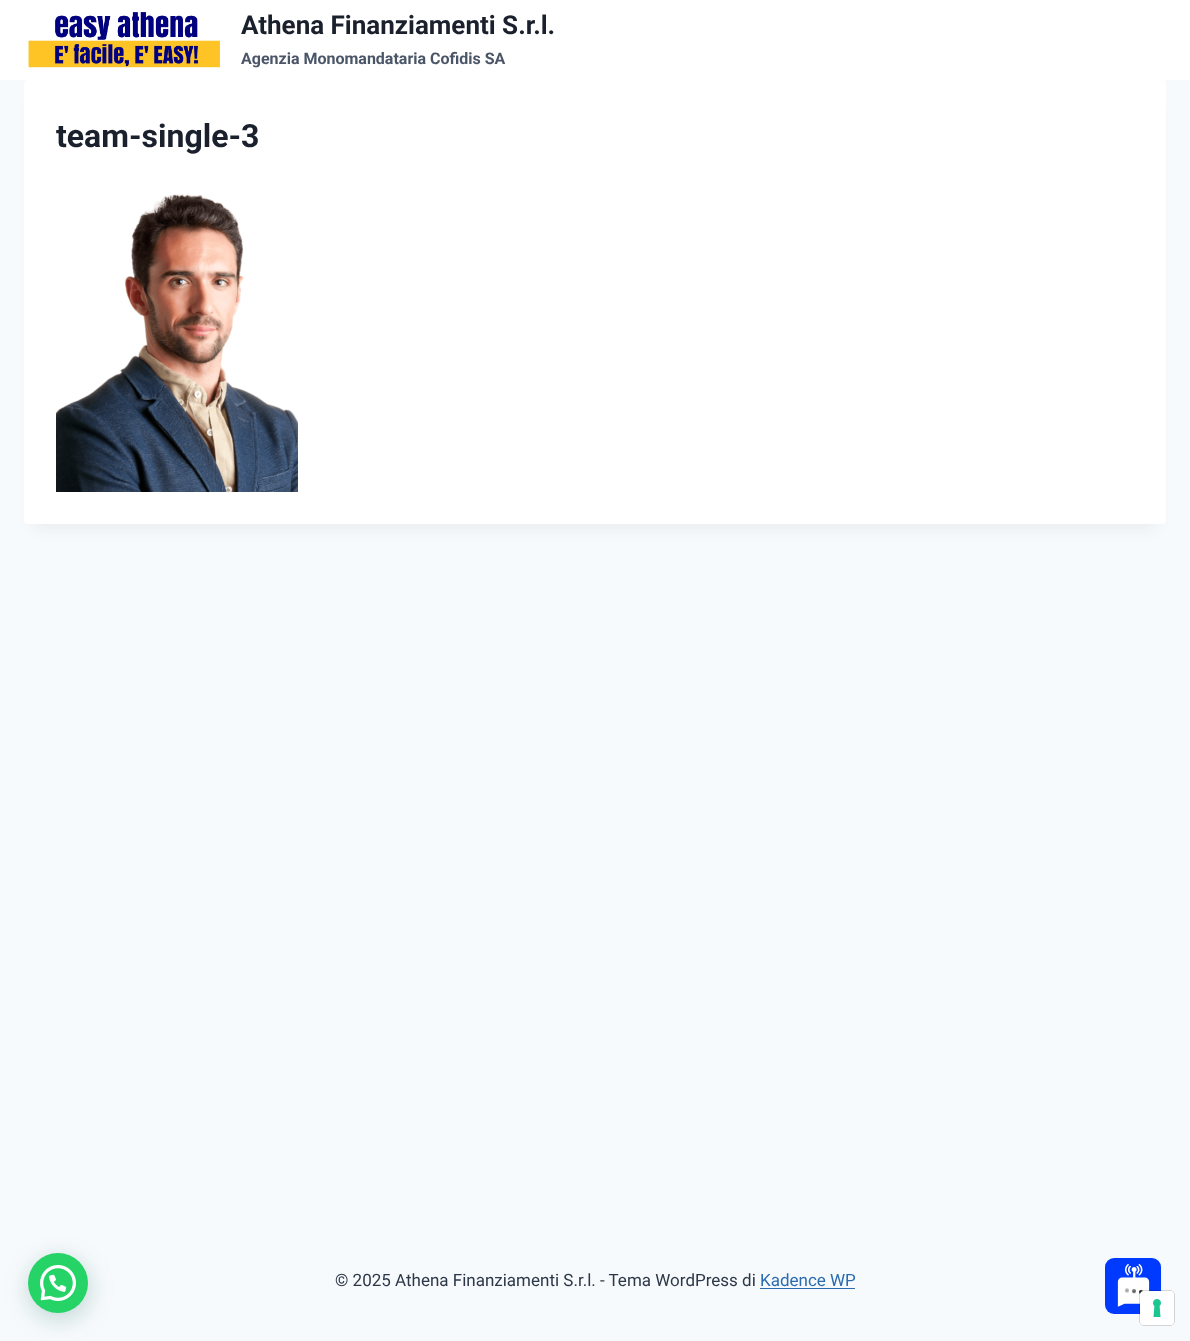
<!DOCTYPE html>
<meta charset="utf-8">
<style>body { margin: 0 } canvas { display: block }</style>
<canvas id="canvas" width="1190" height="1341"></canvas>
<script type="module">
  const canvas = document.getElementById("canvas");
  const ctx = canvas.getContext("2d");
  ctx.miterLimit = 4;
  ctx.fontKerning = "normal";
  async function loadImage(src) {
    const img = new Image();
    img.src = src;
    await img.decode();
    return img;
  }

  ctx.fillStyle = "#f7fafc";
  ctx.fillRect(0, 0, 1190, 1341);
  ctx.fillStyle = "#ffffff";
  ctx.fillRect(0, 0, 1190, 80);
  ctx.drawImage(await loadImage("img1.png"), 28, 12, 193, 56);
  ctx.font = "bold 26px Roboto";
  ctx.fillStyle = "#1a202c";
  ctx.fillText("Athena Finanziamenti S.r.l.", 241, 34);
  ctx.font = "bold 16px Roboto";
  ctx.fillStyle = "#4a5568";
  ctx.fillText("Agenzia Monomandataria Cofidis SA", 241, 64);
  ctx.fillStyle = "rgba(0, 0, 0, 0.05)";
  ctx.filter = "blur(7.5px)";
  ctx.beginPath();
  ctx.rect(34, 105, 1122, 424);
  ctx.fill();
  ctx.filter = "none";
  ctx.fillStyle = "#ffffff";
  ctx.beginPath();
  ctx.roundRect(24, 80, 1142, 444, 4);
  ctx.fill();
  ctx.font = "bold 32px Roboto";
  ctx.fillStyle = "#1a202c";
  ctx.fillText("team-single-3", 56, 147);
  ctx.drawImage(await loadImage("img2.png"), 56, 193, 242, 299);
  ctx.font = "17px Roboto";
  ctx.fillStyle = "#2d3748";
  ctx.fillText("© 2025 Athena Finanziamenti S.r.l. - Tema WordPress di", 335, 1286);
  ctx.fillStyle = "#2b6cb0";
  ctx.fillText("Kadence WP", 760, 1286);
  ctx.fillRect(760, 1288, 95, 1);
  ctx.fillStyle = "rgba(7, 94, 84, 0.24)";
  ctx.filter = "blur(12px)";
  ctx.beginPath();
  ctx.roundRect(29, 1259, 60, 60, 30);
  ctx.fill();
  ctx.filter = "none";
  ctx.fillStyle = "#25d366";
  ctx.beginPath();
  ctx.arc(58, 1283, 30, 0, Math.PI * 2);
  ctx.fill();
  ctx.drawImage(await loadImage("img3.png"), 40, 1265, 36, 36);
  ctx.drawImage(await loadImage("img4.png"), 1105, 1258, 56, 56);
  ctx.beginPath();
  ctx.roundRect(1139.5, 1290.5, 35, 35, 4.5);
  ctx.strokeStyle = "rgba(0, 0, 0, 0.15)";
  ctx.stroke();
  ctx.fillStyle = "#ffffff";
  ctx.beginPath();
  ctx.roundRect(1140, 1291, 34, 34, 4);
  ctx.fill();
  ctx.drawImage(await loadImage("img5.png"), 1153, 1299, 8, 18);
</script>
